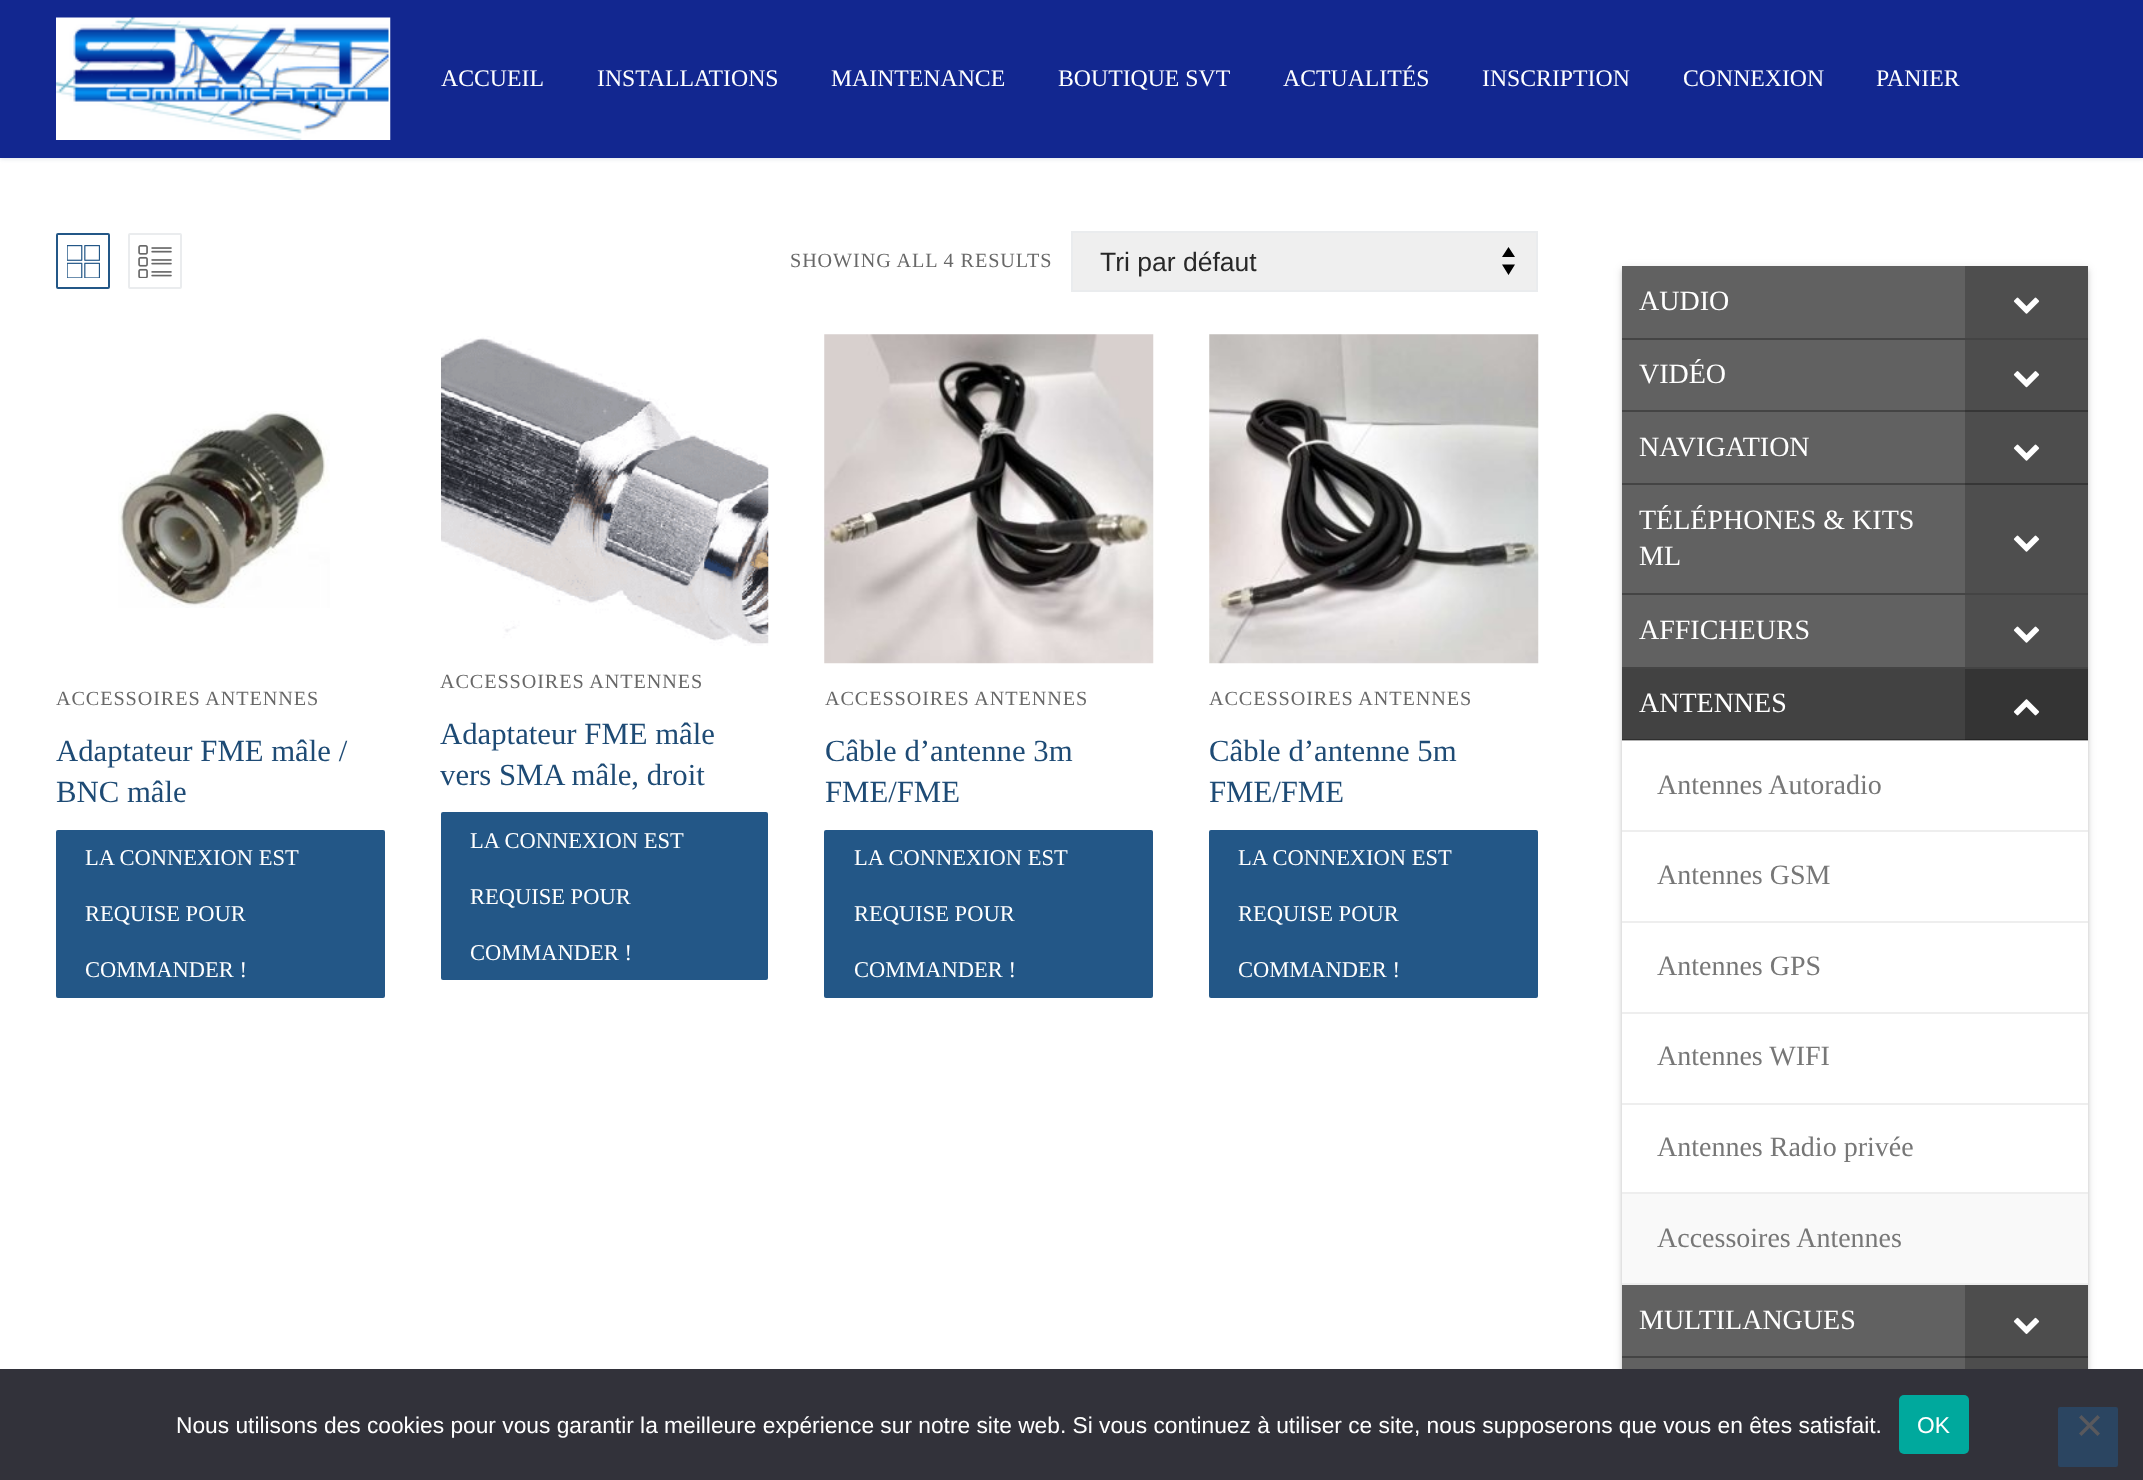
<!DOCTYPE html>
<meta charset="utf-8">
<style>body { margin: 0 } canvas { display: block }</style>
<canvas id="canvas" width="2143" height="1480"></canvas>
<script type="module">
  const canvas = document.getElementById("canvas");
  const ctx = canvas.getContext("2d");
  ctx.miterLimit = 4;
  ctx.fontKerning = "normal";
  async function loadImage(src) {
    const img = new Image();
    img.src = src;
    await img.decode();
    return img;
  }

  ctx.fillStyle = "#ffffff";
  ctx.fillRect(0, 0, 2143, 1480);
  ctx.fillStyle = "#e1e5ea";
  ctx.filter = "blur(2px)";
  ctx.beginPath();
  ctx.rect(0, 2, 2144, 157);
  ctx.fill();
  ctx.filter = "none";
  ctx.fillStyle = "#122790";
  ctx.fillRect(0, 0, 2143, 158);
  ctx.drawImage(await loadImage("img1.png"), 56, 17, 335, 123);
  ctx.font = "23.75px Liberation Serif";
  ctx.fillStyle = "#ffffff";
  ctx.fillText("ACCUEIL", 441, 86);
  ctx.fillText("INSTALLATIONS", 597, 86);
  ctx.fillText("MAINTENANCE", 831, 86);
  ctx.fillText("BOUTIQUE SVT", 1058, 86);
  ctx.fillText("ACTUALITÉS", 1283, 86);
  ctx.fillText("INSCRIPTION", 1482, 86);
  ctx.fillText("CONNEXION", 1683, 86);
  ctx.fillText("PANIER", 1876, 86);
  ctx.beginPath();
  ctx.roundRect(57, 234, 52, 54, 1);
  ctx.strokeStyle = "#235787";
  ctx.lineWidth = 2;
  ctx.stroke();
  ctx.drawImage(await loadImage("img2.png"), 67, 245, 33, 33);
  ctx.beginPath();
  ctx.roundRect(129, 234, 52, 54, 1);
  ctx.strokeStyle = "#eaecee";
  ctx.stroke();
  ctx.drawImage(await loadImage("img3.png"), 138, 245, 34, 33);
  ctx.letterSpacing = "0.9px";
  ctx.font = "20.2px Liberation Serif";
  ctx.fillStyle = "#686868";
  ctx.fillText("SHOWING ALL 4 RESULTS", 790, 267);
  ctx.fillStyle = "#efefef";
  ctx.fillRect(1073, 233, 463, 57);
  ctx.fillStyle = "#000000";
  ctx.beginPath();
  ctx.moveTo(1508.5, 247);
  ctx.lineTo(1502, 257);
  ctx.lineTo(1515, 257);
  ctx.closePath();
  ctx.moveTo(1508.5, 275);
  ctx.lineTo(1515, 264.5);
  ctx.lineTo(1502, 264.5);
  ctx.closePath();
  ctx.fill();
  ctx.strokeRect(1072, 232, 465, 59);
  ctx.letterSpacing = "0px";
  ctx.font = "26.5px Liberation Sans";
  ctx.fillStyle = "#282828";
  ctx.fillText("Tri par défaut", 1100, 271);
  ctx.drawImage(await loadImage("img4.png"), 118, 411, 212, 197);
  ctx.letterSpacing = "0.9px";
  ctx.font = "20.2px Liberation Serif";
  ctx.fillStyle = "#686868";
  ctx.fillText("ACCESSOIRES ANTENNES", 56, 705);
  ctx.letterSpacing = "0px";
  ctx.font = "30.75px Liberation Serif";
  ctx.fillStyle = "#1e4b75";
  ctx.fillText("Adaptateur FME mâle /", 56, 761);
  ctx.fillText("BNC mâle", 56, 802);
  ctx.fillStyle = "#235787";
  ctx.beginPath();
  ctx.roundRect(56, 830, 329, 168, 2);
  ctx.fill();
  ctx.font = "22.5px Liberation Serif";
  ctx.fillStyle = "#ffffff";
  ctx.fillText("LA CONNEXION EST", 85, 865);
  ctx.fillText("REQUISE POUR", 85, 921);
  ctx.fillText("COMMANDER !", 85, 977);
  ctx.drawImage(await loadImage("img5.png"), 441, 336, 328, 310);
  ctx.letterSpacing = "0.9px";
  ctx.font = "20.2px Liberation Serif";
  ctx.fillStyle = "#686868";
  ctx.fillText("ACCESSOIRES ANTENNES", 440, 688);
  ctx.letterSpacing = "0px";
  ctx.font = "30.75px Liberation Serif";
  ctx.fillStyle = "#1e4b75";
  ctx.fillText("Adaptateur FME mâle", 440, 744);
  ctx.fillText("vers SMA mâle, droit", 440, 785);
  ctx.fillStyle = "#235787";
  ctx.beginPath();
  ctx.roundRect(441, 812, 327, 168, 2);
  ctx.fill();
  ctx.font = "22.5px Liberation Serif";
  ctx.fillStyle = "#ffffff";
  ctx.fillText("LA CONNEXION EST", 470, 848);
  ctx.fillText("REQUISE POUR", 470, 904);
  ctx.fillText("COMMANDER !", 470, 960);
  ctx.drawImage(await loadImage("img6.png"), 824, 334, 330, 330);
  ctx.letterSpacing = "0.9px";
  ctx.font = "20.2px Liberation Serif";
  ctx.fillStyle = "#686868";
  ctx.fillText("ACCESSOIRES ANTENNES", 825, 705);
  ctx.letterSpacing = "0px";
  ctx.font = "30.75px Liberation Serif";
  ctx.fillStyle = "#1e4b75";
  ctx.fillText("Câble d’antenne 3m", 825, 761);
  ctx.fillText("FME/FME", 825, 802);
  ctx.fillStyle = "#235787";
  ctx.beginPath();
  ctx.roundRect(824, 830, 329, 168, 2);
  ctx.fill();
  ctx.font = "22.5px Liberation Serif";
  ctx.fillStyle = "#ffffff";
  ctx.fillText("LA CONNEXION EST", 854, 865);
  ctx.fillText("REQUISE POUR", 854, 921);
  ctx.fillText("COMMANDER !", 854, 977);
  ctx.drawImage(await loadImage("img7.png"), 1209, 334, 330, 330);
  ctx.letterSpacing = "0.9px";
  ctx.font = "20.2px Liberation Serif";
  ctx.fillStyle = "#686868";
  ctx.fillText("ACCESSOIRES ANTENNES", 1209, 705);
  ctx.letterSpacing = "0px";
  ctx.font = "30.75px Liberation Serif";
  ctx.fillStyle = "#1e4b75";
  ctx.fillText("Câble d’antenne 5m", 1209, 761);
  ctx.fillText("FME/FME", 1209, 802);
  ctx.fillStyle = "#235787";
  ctx.beginPath();
  ctx.roundRect(1209, 830, 329, 168, 2);
  ctx.fill();
  ctx.font = "22.5px Liberation Serif";
  ctx.fillStyle = "#ffffff";
  ctx.fillText("LA CONNEXION EST", 1238, 865);
  ctx.fillText("REQUISE POUR", 1238, 921);
  ctx.fillText("COMMANDER !", 1238, 977);
  ctx.fillStyle = "rgba(0, 0, 0, 0.12)";
  ctx.filter = "blur(4.5px)";
  ctx.beginPath();
  ctx.rect(1622, 268, 466, 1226);
  ctx.fill();
  ctx.filter = "none";
  ctx.fillStyle = "rgba(0, 0, 0, 0.14)";
  ctx.filter = "blur(2px)";
  ctx.beginPath();
  ctx.rect(1622, 270, 466, 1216);
  ctx.fill();
  ctx.filter = "none";
  ctx.fillStyle = "#616161";
  ctx.fillRect(1622, 266, 466, 1103);
  ctx.fillStyle = "#444444";
  ctx.fillRect(1622, 338, 466, 2);
  ctx.font = "28px Liberation Serif";
  ctx.fillStyle = "#ffffff";
  ctx.fillText("AUDIO", 1639, 310);
  ctx.fillStyle = "#4e4e4e";
  ctx.fillRect(1965, 266, 123, 72);
  ctx.drawImage(await loadImage("img8.png"), 2013, 297, 27, 17);
  ctx.fillStyle = "#444444";
  ctx.fillRect(1622, 410, 466, 2);
  ctx.fillStyle = "#ffffff";
  ctx.fillText("VIDÉO", 1639, 383);
  ctx.fillStyle = "rgba(0, 0, 0, 0.2)";
  ctx.fillRect(1965, 340, 123, 71);
  ctx.drawImage(await loadImage("img9.png"), 2013, 371, 27, 17);
  ctx.fillStyle = "#444444";
  ctx.fillRect(1622, 483, 466, 2);
  ctx.fillStyle = "#ffffff";
  ctx.fillText("NAVIGATION", 1639, 456);
  ctx.fillStyle = "rgba(0, 0, 0, 0.2)";
  ctx.fillRect(1965, 411, 123, 74);
  ctx.drawImage(await loadImage("img10.png"), 2013, 444, 27, 17);
  ctx.fillStyle = "#444444";
  ctx.fillRect(1622, 593, 466, 2);
  ctx.fillStyle = "#ffffff";
  ctx.fillText("TÉLÉPHONES & KITS", 1639, 529);
  ctx.fillText("ML", 1639, 565);
  ctx.fillStyle = "#4e4e4e";
  ctx.fillRect(1965, 485, 123, 108);
  ctx.drawImage(await loadImage("img8.png"), 2013, 535, 27, 17);
  ctx.fillStyle = "#444444";
  ctx.fillRect(1622, 667, 466, 2);
  ctx.fillStyle = "#ffffff";
  ctx.fillText("AFFICHEURS", 1639, 639);
  ctx.fillStyle = "#4e4e4e";
  ctx.fillRect(1965, 595, 123, 72);
  ctx.drawImage(await loadImage("img8.png"), 2013, 626, 27, 17);
  ctx.fillStyle = "#424242";
  ctx.fillRect(1622, 669, 466, 71);
  ctx.fillStyle = "#ffffff";
  ctx.fillRect(1622, 740, 466, 452);
  ctx.fillStyle = "rgba(0, 0, 0, 0.3)";
  ctx.fillRect(1622, 739, 466, 2);
  ctx.fillStyle = "#ffffff";
  ctx.fillText("ANTENNES", 1639, 712);
  ctx.fillStyle = "rgba(0, 0, 0, 0.2)";
  ctx.fillRect(1965, 669, 123, 71);
  ctx.drawImage(await loadImage("img11.png"), 2013, 699, 27, 17);
  ctx.fillStyle = "#eeeeee";
  ctx.fillRect(1622, 830, 466, 2);
  ctx.fillStyle = "#777777";
  ctx.fillText("Antennes Autoradio", 1657, 794);
  ctx.fillStyle = "#eeeeee";
  ctx.fillRect(1622, 921, 466, 2);
  ctx.fillStyle = "#777777";
  ctx.fillText("Antennes GSM", 1657, 884);
  ctx.fillStyle = "#eeeeee";
  ctx.fillRect(1622, 1012, 466, 2);
  ctx.fillStyle = "#777777";
  ctx.fillText("Antennes GPS", 1657, 975);
  ctx.fillStyle = "#eeeeee";
  ctx.fillRect(1622, 1103, 466, 2);
  ctx.fillStyle = "#777777";
  ctx.fillText("Antennes WIFI", 1657, 1065);
  ctx.fillStyle = "#eeeeee";
  ctx.fillRect(1622, 1192, 466, 2);
  ctx.fillStyle = "#777777";
  ctx.fillText("Antennes Radio privée", 1657, 1156);
  ctx.fillStyle = "#f9f9f9";
  ctx.fillRect(1622, 1194, 466, 89);
  ctx.fillStyle = "#eeeeee";
  ctx.fillRect(1622, 1283, 466, 2);
  ctx.fillStyle = "#777777";
  ctx.fillText("Accessoires Antennes", 1657, 1247);
  ctx.fillStyle = "#444444";
  ctx.fillRect(1622, 1356, 466, 2);
  ctx.fillStyle = "#ffffff";
  ctx.fillText("MULTILANGUES", 1639, 1329);
  ctx.fillStyle = "rgba(0, 0, 0, 0.2)";
  ctx.fillRect(1965, 1285, 123, 73);
  ctx.drawImage(await loadImage("img12.png"), 2013, 1317, 27, 17);
  ctx.fillRect(1965, 1358, 123, 11);
  ctx.fillStyle = "#32323a";
  ctx.fillRect(0, 1369, 2143, 111);
  ctx.font = "22.75px Liberation Sans";
  ctx.fillStyle = "#ffffff";
  ctx.fillText("Nous utilisons des cookies pour vous garantir la meilleure expérience sur notre site web. Si vous continuez à utiliser ce site, nous supposerons que vous en êtes satisfait.", 176, 1433);
  ctx.fillStyle = "#00a99d";
  ctx.beginPath();
  ctx.roundRect(1899, 1395, 70, 59, 5);
  ctx.fill();
  ctx.fillStyle = "#ffffff";
  ctx.fillText("OK", 1917, 1433);
  ctx.fillStyle = "#2b4561";
  ctx.beginPath();
  ctx.roundRect(2058, 1407, 60, 60, 2);
  ctx.fill();
  ctx.fillStyle = "#59595d";
  ctx.beginPath();
  ctx.moveTo(2097.5, 1415);
  ctx.lineTo(2100, 1417.5);
  ctx.lineTo(2081.5, 1436);
  ctx.lineTo(2079, 1433.5);
  ctx.closePath();
  ctx.fill();
  ctx.beginPath();
  ctx.moveTo(2079, 1417.5);
  ctx.lineTo(2081.5, 1415);
  ctx.lineTo(2100, 1433.5);
  ctx.lineTo(2097.5, 1436);
  ctx.closePath();
  ctx.fill();
</script>
